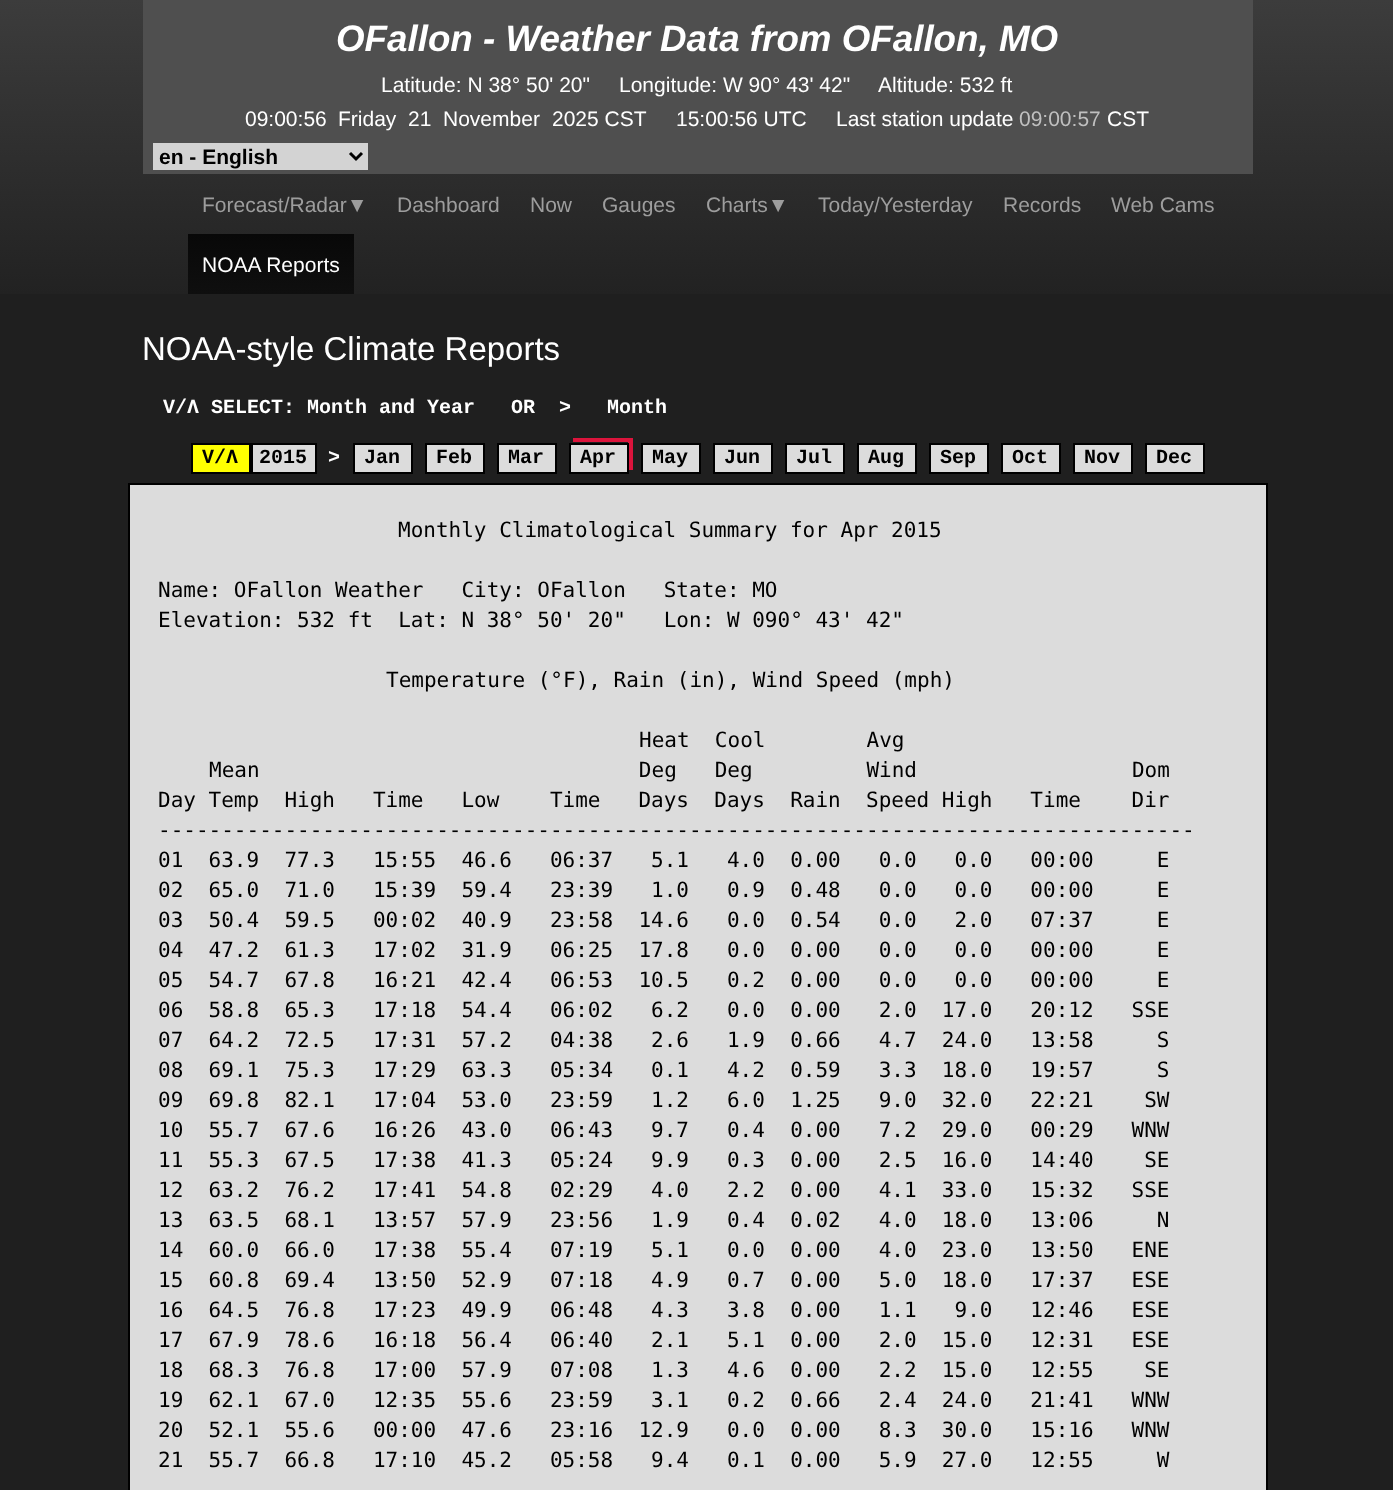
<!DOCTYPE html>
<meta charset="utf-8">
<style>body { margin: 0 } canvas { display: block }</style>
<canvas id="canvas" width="1393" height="1490"></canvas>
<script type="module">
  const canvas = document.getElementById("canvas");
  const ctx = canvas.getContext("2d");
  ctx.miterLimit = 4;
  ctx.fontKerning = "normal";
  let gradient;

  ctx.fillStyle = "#1f1f1f";
  ctx.fillRect(0, 0, 1393, 1490);
  gradient = ctx.createLinearGradient(697, 0, 697, 294);
  gradient.addColorStop(0, "#3c3c3c");
  gradient.addColorStop(1, "#222222");
  ctx.fillStyle = gradient;
  ctx.fillRect(0, 0, 1393, 294);
  ctx.fillStyle = "#4f4f4f";
  ctx.fillRect(143, 0, 1110, 174);
  ctx.font = "italic bold 36.75px Liberation Sans";
  ctx.fillStyle = "#ffffff";
  ctx.fillText("OFallon - Weather Data from OFallon, MO", 336, 51);
  ctx.font = "21px Liberation Sans";
  ctx.fillText("Latitude: N 38° 50' 20\"", 381, 92);
  ctx.fillText("Longitude: W 90° 43' 42\"", 619, 92);
  ctx.fillText("Altitude: 532 ft", 878, 92);
  ctx.fillText("09:00:56", 245, 126);
  ctx.fillText("Friday", 338, 126);
  ctx.fillText("21", 408, 126);
  ctx.fillText("November", 443, 126);
  ctx.fillText("2025 CST", 552, 126);
  ctx.fillText("15:00:56 UTC", 676, 126);
  ctx.fillText("Last station update", 836, 126);
  ctx.fillStyle = "#bfbfbf";
  ctx.fillText("09:00:57", 1019, 126);
  ctx.fillStyle = "#ffffff";
  ctx.fillText("CST", 1107, 126);
  ctx.fillStyle = "#d3d3d3";
  ctx.fillRect(153, 143, 215, 27);
  ctx.beginPath();
  ctx.moveTo(350, 153);
  ctx.lineTo(356, 159);
  ctx.lineTo(362, 153);
  ctx.strokeStyle = "#000000";
  ctx.lineWidth = 3;
  ctx.stroke();
  ctx.font = "bold 21px Liberation Sans";
  ctx.fillStyle = "#000000";
  ctx.fillText("en - English", 159, 164);
  ctx.font = "21px Liberation Sans";
  ctx.fillStyle = "#9d9d9d";
  ctx.fillText("Forecast/Radar▼", 202, 212);
  ctx.fillText("Dashboard", 397, 212);
  ctx.fillText("Now", 530, 212);
  ctx.fillText("Gauges", 602, 212);
  ctx.fillText("Charts▼", 706, 212);
  ctx.fillText("Today/Yesterday", 818, 212);
  ctx.fillText("Records", 1003, 212);
  ctx.fillText("Web Cams", 1111, 212);
  gradient = ctx.createLinearGradient(271, 234, 271, 294);
  gradient.addColorStop(0, "#080808");
  gradient.addColorStop(1, "#0f0f0f");
  ctx.fillStyle = gradient;
  ctx.fillRect(188, 234, 166, 60);
  ctx.fillStyle = "#ffffff";
  ctx.fillText("NOAA Reports", 202, 272);
  ctx.font = "33px Liberation Sans";
  ctx.fillText("NOAA-style Climate Reports", 142, 360);
  ctx.font = "bold 20px Liberation Mono";
  ctx.fillText("V/Λ SELECT: Month and Year", 163, 413);
  ctx.fillText("OR", 511, 413);
  ctx.fillText(">", 559, 413);
  ctx.fillText("Month", 607, 413);
  ctx.fillStyle = "#ffff00";
  ctx.beginPath();
  ctx.rect(192, 444, 58, 29);
  ctx.fill();
  ctx.lineWidth = 2;
  ctx.stroke();
  ctx.fillStyle = "#000000";
  ctx.fillText("V/Λ", 202, 463);
  ctx.fillStyle = "#dcdcdc";
  ctx.beginPath();
  ctx.rect(252, 444, 64, 29);
  ctx.fill();
  ctx.stroke();
  ctx.fillStyle = "#000000";
  ctx.fillText("2015", 259, 463);
  ctx.fillStyle = "#ffffff";
  ctx.fillText(">", 328, 463);
  ctx.fillStyle = "#dcdcdc";
  ctx.beginPath();
  ctx.rect(354, 444, 58, 29);
  ctx.fill();
  ctx.stroke();
  ctx.fillStyle = "#000000";
  ctx.fillText("Jan", 364, 463);
  ctx.fillStyle = "#dcdcdc";
  ctx.beginPath();
  ctx.rect(426, 444, 58, 29);
  ctx.fill();
  ctx.stroke();
  ctx.fillStyle = "#000000";
  ctx.fillText("Feb", 436, 463);
  ctx.fillStyle = "#dcdcdc";
  ctx.beginPath();
  ctx.rect(498, 444, 58, 29);
  ctx.fill();
  ctx.stroke();
  ctx.fillStyle = "#000000";
  ctx.fillText("Mar", 508, 463);
  ctx.fillStyle = "#dc143c";
  ctx.beginPath();
  ctx.moveTo(573, 438);
  ctx.lineTo(573, 442);
  ctx.lineTo(628, 442);
  ctx.lineTo(628, 470);
  ctx.lineTo(633, 470);
  ctx.lineTo(633, 438);
  ctx.closePath();
  ctx.fill();
  ctx.fillStyle = "#dcdcdc";
  ctx.beginPath();
  ctx.rect(570, 444, 58, 29);
  ctx.fill();
  ctx.stroke();
  ctx.fillStyle = "#000000";
  ctx.fillText("Apr", 580, 463);
  ctx.fillStyle = "#dcdcdc";
  ctx.beginPath();
  ctx.rect(642, 444, 58, 29);
  ctx.fill();
  ctx.stroke();
  ctx.fillStyle = "#000000";
  ctx.fillText("May", 652, 463);
  ctx.fillStyle = "#dcdcdc";
  ctx.beginPath();
  ctx.rect(714, 444, 58, 29);
  ctx.fill();
  ctx.stroke();
  ctx.fillStyle = "#000000";
  ctx.fillText("Jun", 724, 463);
  ctx.fillStyle = "#dcdcdc";
  ctx.beginPath();
  ctx.rect(786, 444, 58, 29);
  ctx.fill();
  ctx.stroke();
  ctx.fillStyle = "#000000";
  ctx.fillText("Jul", 796, 463);
  ctx.fillStyle = "#dcdcdc";
  ctx.beginPath();
  ctx.rect(858, 444, 58, 29);
  ctx.fill();
  ctx.stroke();
  ctx.fillStyle = "#000000";
  ctx.fillText("Aug", 868, 463);
  ctx.fillStyle = "#dcdcdc";
  ctx.beginPath();
  ctx.rect(930, 444, 58, 29);
  ctx.fill();
  ctx.stroke();
  ctx.fillStyle = "#000000";
  ctx.fillText("Sep", 940, 463);
  ctx.fillStyle = "#dcdcdc";
  ctx.beginPath();
  ctx.rect(1002, 444, 58, 29);
  ctx.fill();
  ctx.stroke();
  ctx.fillStyle = "#000000";
  ctx.fillText("Oct", 1012, 463);
  ctx.fillStyle = "#dcdcdc";
  ctx.beginPath();
  ctx.rect(1074, 444, 58, 29);
  ctx.fill();
  ctx.stroke();
  ctx.fillStyle = "#000000";
  ctx.fillText("Nov", 1084, 463);
  ctx.fillStyle = "#dcdcdc";
  ctx.beginPath();
  ctx.rect(1146, 444, 58, 29);
  ctx.fill();
  ctx.stroke();
  ctx.fillStyle = "#000000";
  ctx.fillText("Dec", 1156, 463);
  ctx.fillStyle = "#dcdcdc";
  ctx.beginPath();
  ctx.rect(129, 484, 1138, 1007);
  ctx.fill();
  ctx.stroke();
  ctx.font = "21px DejaVu Sans Mono";
  ctx.fillStyle = "#000000";
  ctx.fillText("Monthly Climatological Summary for Apr 2015", 398, 537);
  ctx.fillText("Name: OFallon Weather   City: OFallon   State: MO", 158, 597);
  ctx.fillText("Elevation: 532 ft  Lat: N 38° 50' 20\"   Lon: W 090° 43' 42\"", 158, 627);
  ctx.fillText("Temperature (°F), Rain (in), Wind Speed (mph)", 386, 687);
  ctx.fillText("Heat  Cool        Avg", 639, 747);
  ctx.fillText("Mean                              Deg   Deg         Wind                 Dom", 209, 777);
  ctx.fillText("Day Temp  High   Time   Low    Time   Days  Days  Rain  Speed High   Time    Dir", 158, 807);
  ctx.fillText("----------------------------------------------------------------------------------", 158, 837);
  ctx.fillText("01  63.9  77.3   15:55  46.6   06:37   5.1   4.0  0.00   0.0   0.0   00:00     E", 158, 867);
  ctx.fillText("02  65.0  71.0   15:39  59.4   23:39   1.0   0.9  0.48   0.0   0.0   00:00     E", 158, 897);
  ctx.fillText("03  50.4  59.5   00:02  40.9   23:58  14.6   0.0  0.54   0.0   2.0   07:37     E", 158, 927);
  ctx.fillText("04  47.2  61.3   17:02  31.9   06:25  17.8   0.0  0.00   0.0   0.0   00:00     E", 158, 957);
  ctx.fillText("05  54.7  67.8   16:21  42.4   06:53  10.5   0.2  0.00   0.0   0.0   00:00     E", 158, 987);
  ctx.fillText("06  58.8  65.3   17:18  54.4   06:02   6.2   0.0  0.00   2.0  17.0   20:12   SSE", 158, 1017);
  ctx.fillText("07  64.2  72.5   17:31  57.2   04:38   2.6   1.9  0.66   4.7  24.0   13:58     S", 158, 1047);
  ctx.fillText("08  69.1  75.3   17:29  63.3   05:34   0.1   4.2  0.59   3.3  18.0   19:57     S", 158, 1077);
  ctx.fillText("09  69.8  82.1   17:04  53.0   23:59   1.2   6.0  1.25   9.0  32.0   22:21    SW", 158, 1107);
  ctx.fillText("10  55.7  67.6   16:26  43.0   06:43   9.7   0.4  0.00   7.2  29.0   00:29   WNW", 158, 1137);
  ctx.fillText("11  55.3  67.5   17:38  41.3   05:24   9.9   0.3  0.00   2.5  16.0   14:40    SE", 158, 1167);
  ctx.fillText("12  63.2  76.2   17:41  54.8   02:29   4.0   2.2  0.00   4.1  33.0   15:32   SSE", 158, 1197);
  ctx.fillText("13  63.5  68.1   13:57  57.9   23:56   1.9   0.4  0.02   4.0  18.0   13:06     N", 158, 1227);
  ctx.fillText("14  60.0  66.0   17:38  55.4   07:19   5.1   0.0  0.00   4.0  23.0   13:50   ENE", 158, 1257);
  ctx.fillText("15  60.8  69.4   13:50  52.9   07:18   4.9   0.7  0.00   5.0  18.0   17:37   ESE", 158, 1287);
  ctx.fillText("16  64.5  76.8   17:23  49.9   06:48   4.3   3.8  0.00   1.1   9.0   12:46   ESE", 158, 1317);
  ctx.fillText("17  67.9  78.6   16:18  56.4   06:40   2.1   5.1  0.00   2.0  15.0   12:31   ESE", 158, 1347);
  ctx.fillText("18  68.3  76.8   17:00  57.9   07:08   1.3   4.6  0.00   2.2  15.0   12:55    SE", 158, 1377);
  ctx.fillText("19  62.1  67.0   12:35  55.6   23:59   3.1   0.2  0.66   2.4  24.0   21:41   WNW", 158, 1407);
  ctx.fillText("20  52.1  55.6   00:00  47.6   23:16  12.9   0.0  0.00   8.3  30.0   15:16   WNW", 158, 1437);
  ctx.fillText("21  55.7  66.8   17:10  45.2   05:58   9.4   0.1  0.00   5.9  27.0   12:55     W", 158, 1467);
</script>
